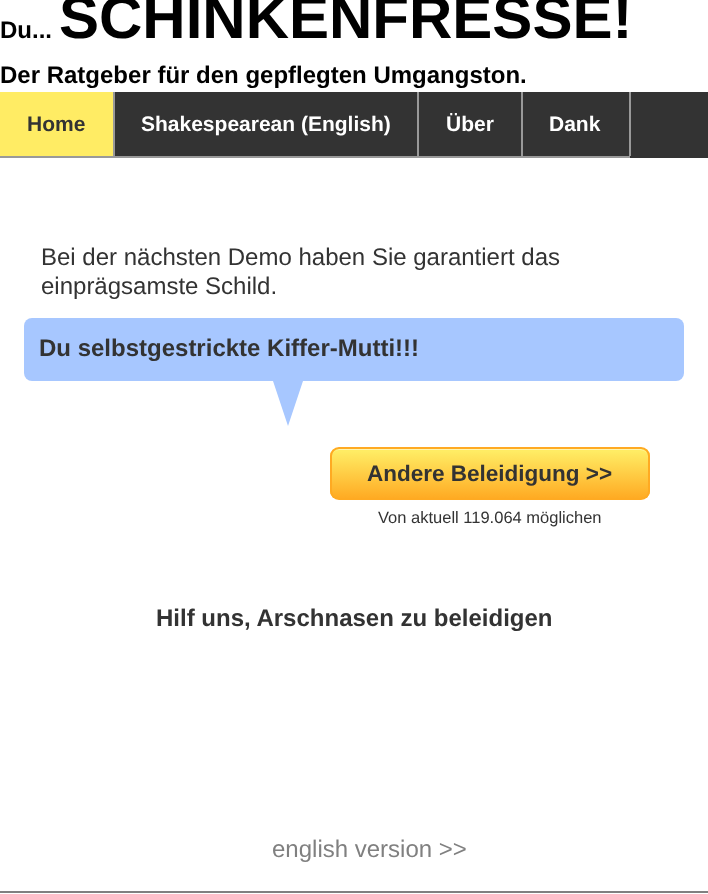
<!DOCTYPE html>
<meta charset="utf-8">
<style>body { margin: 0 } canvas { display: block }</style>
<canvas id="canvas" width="708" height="894"></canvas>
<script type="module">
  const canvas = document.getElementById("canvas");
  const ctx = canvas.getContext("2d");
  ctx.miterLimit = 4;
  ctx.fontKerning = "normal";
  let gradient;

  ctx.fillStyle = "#ffffff";
  ctx.fillRect(0, 0, 708, 894);
  ctx.font = "bold 24px Liberation Sans";
  ctx.fillStyle = "#000000";
  ctx.fillText("Du...", 0, 38);
  ctx.font = "bold 60px Liberation Sans";
  ctx.fillText("SCHINKENFRESSE!", 59, 38);
  ctx.font = "bold 24px Liberation Sans";
  ctx.fillText("Der Ratgeber für den gepflegten Umgangston.", 0, 83);
  ctx.fillStyle = "#333333";
  ctx.fillRect(115, 92, 593, 66);
  ctx.fillStyle = "#999999";
  ctx.fillRect(0, 156, 630, 2);
  ctx.fillStyle = "#ffec64";
  ctx.fillRect(0, 92, 113, 64);
  ctx.font = "bold 21px Liberation Sans";
  ctx.fillStyle = "#333333";
  ctx.fillText("Home", 27, 131);
  ctx.fillStyle = "#999999";
  ctx.fillRect(113, 92, 2, 64);
  ctx.fillStyle = "#ffffff";
  ctx.fillText("Shakespearean (English)", 141, 131);
  ctx.fillStyle = "#999999";
  ctx.fillRect(417, 92, 2, 64);
  ctx.fillStyle = "#ffffff";
  ctx.fillText("Über", 446, 131);
  ctx.fillStyle = "#999999";
  ctx.fillRect(521, 92, 2, 64);
  ctx.fillStyle = "#ffffff";
  ctx.fillText("Dank", 549, 131);
  ctx.fillStyle = "#999999";
  ctx.fillRect(629, 92, 2, 64);
  ctx.fillStyle = "#808080";
  ctx.fillRect(0, 891, 708, 2);
  ctx.font = "24px Liberation Sans";
  ctx.fillStyle = "#333333";
  ctx.fillText("Bei der nächsten Demo haben Sie garantiert das", 41, 265);
  ctx.fillText("einprägsamste Schild.", 41, 294);
  ctx.fillStyle = "#a7c7ff";
  ctx.beginPath();
  ctx.roundRect(24, 318, 660, 63, 8);
  ctx.fill();
  ctx.font = "bold 24px Liberation Sans";
  ctx.fillStyle = "#333333";
  ctx.fillText("Du selbstgestrickte Kiffer-Mutti!!!", 39, 356);
  ctx.fillStyle = "#a7c7ff";
  ctx.beginPath();
  ctx.moveTo(273, 381);
  ctx.lineTo(303, 381);
  ctx.lineTo(288, 426);
  ctx.closePath();
  ctx.fill();
  ctx.save();
  ctx.beginPath();
  ctx.roundRect(330, 447, 320, 53, 9);
  ctx.clip();
  gradient = ctx.createLinearGradient(332, 449, 332, 498);
  gradient.addColorStop(0.05, "#ffec64");
  gradient.addColorStop(1, "#ffab23");
  ctx.fillStyle = gradient;
  ctx.fillRect(330, 449, 320, 49);
  ctx.restore();
  ctx.fillStyle = "#fff6af";
  ctx.beginPath();
  ctx.moveTo(339, 450);
  ctx.lineTo(640, 450);
  ctx.bezierCurveTo(645, 450, 648, 453, 648, 458);
  ctx.lineTo(648, 457);
  ctx.bezierCurveTo(648, 453, 644, 449, 640, 449);
  ctx.lineTo(340, 449);
  ctx.bezierCurveTo(336, 449, 332, 453, 332, 457);
  ctx.lineTo(332, 458);
  ctx.bezierCurveTo(332, 453, 335, 450, 339, 450);
  ctx.closePath();
  ctx.fill();
  ctx.beginPath();
  ctx.roundRect(331, 448, 318, 51, 8);
  ctx.strokeStyle = "#ffaa22";
  ctx.lineWidth = 2;
  ctx.stroke();
  ctx.font = "bold 22.5px Liberation Sans";
  ctx.fillStyle = "#333333";
  ctx.fillText("Andere Beleidigung >>", 367, 481);
  ctx.font = "16.5px Liberation Sans";
  ctx.fillText("Von aktuell 119.064 möglichen", 378, 523);
  ctx.font = "bold 24px Liberation Sans";
  ctx.fillText("Hilf uns, Arschnasen zu beleidigen", 156, 626);
  ctx.font = "24px Liberation Sans";
  ctx.fillStyle = "#808080";
  ctx.fillText("english version >>", 272, 857);
</script>
